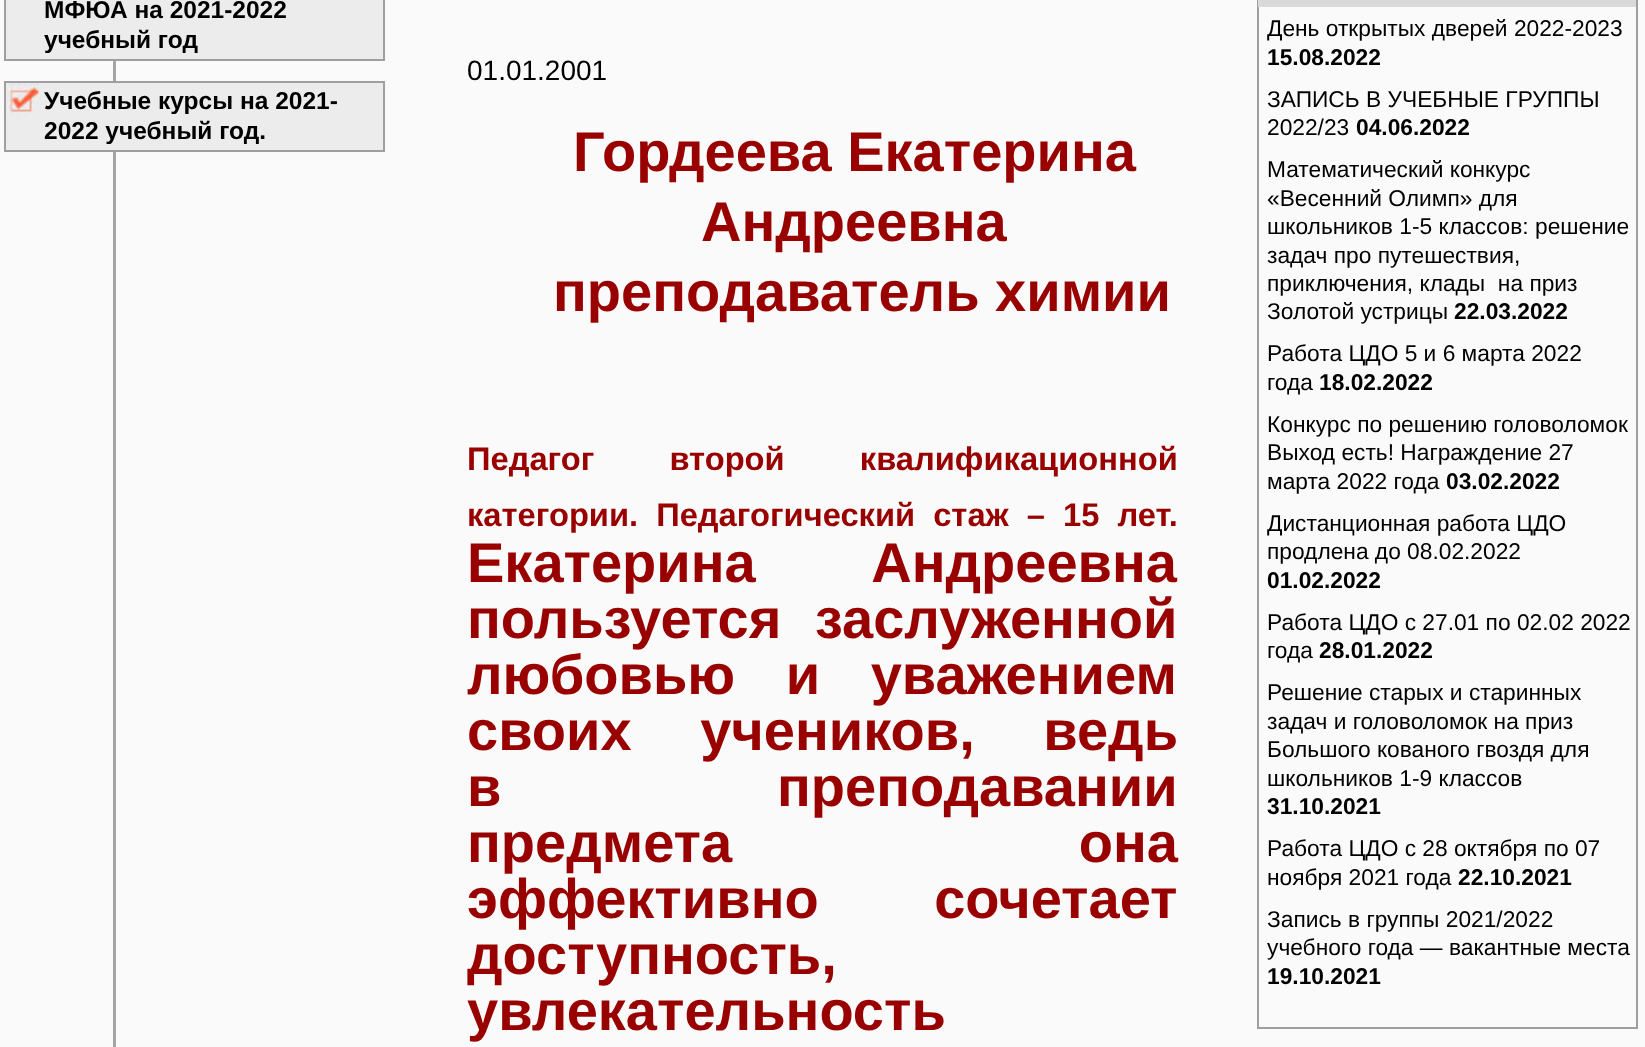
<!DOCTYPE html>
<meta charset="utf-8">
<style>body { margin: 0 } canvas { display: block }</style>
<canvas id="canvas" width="1645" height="1047"></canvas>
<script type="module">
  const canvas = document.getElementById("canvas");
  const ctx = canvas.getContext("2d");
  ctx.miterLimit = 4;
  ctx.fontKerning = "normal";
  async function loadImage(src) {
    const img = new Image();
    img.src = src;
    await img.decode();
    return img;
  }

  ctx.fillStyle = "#fafafa";
  ctx.fillRect(0, 0, 1645, 1047);
  ctx.fillStyle = "#a4a4a4";
  ctx.fillRect(113, 61, 3, 986);
  ctx.fillStyle = "#ececec";
  ctx.beginPath();
  ctx.rect(5, -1, 379, 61);
  ctx.fill();
  ctx.strokeStyle = "#9f9f9f";
  ctx.lineWidth = 2;
  ctx.stroke();
  ctx.font = "bold 24.5px Liberation Sans";
  ctx.fillStyle = "#000000";
  ctx.fillText("МФЮА на 2021-2022", 44, 18);
  ctx.fillText("учебный год", 44, 48);
  ctx.fillStyle = "#ececec";
  ctx.fillRect(6, 83, 377, 67);
  ctx.drawImage(await loadImage("img1.png"), 6, 83, 33, 34);
  ctx.strokeRect(5, 82, 379, 69);
  ctx.fillStyle = "#000000";
  ctx.fillText("Учебные курсы на 2021-", 44, 109);
  ctx.fillText("2022 учебный год.", 44, 139);
  ctx.font = "28px Liberation Sans";
  ctx.fillText("01.01.2001", 467, 80);
  ctx.font = "bold 56px Liberation Sans";
  ctx.fillStyle = "#990000";
  ctx.fillText("Гордеева Екатерина", 573, 171);
  ctx.fillText("Андреевна", 701, 241);
  ctx.fillText("преподаватель химии", 553, 311);
  ctx.wordSpacing = "66px";
  ctx.font = "bold 32.7px Liberation Sans";
  ctx.fillText("Педагог второй квалификационной", 467, 470);
  ctx.wordSpacing = "9px";
  ctx.fillText("категории. Педагогический стаж – 15 лет.", 467, 526);
  ctx.wordSpacing = "100px";
  ctx.font = "bold 56px Liberation Sans";
  ctx.fillText("Екатерина Андреевна", 467, 582);
  ctx.wordSpacing = "18px";
  ctx.fillText("пользуется заслуженной", 467, 638);
  ctx.wordSpacing = "35px";
  ctx.fillText("любовью и уважением", 467, 694);
  ctx.wordSpacing = "53px";
  ctx.fillText("своих учеников, ведь", 467, 750);
  ctx.wordSpacing = "0px";
  ctx.fillText("в", 467, 806);
  ctx.fillText("преподавании", 777, 806);
  ctx.wordSpacing = "331px";
  ctx.fillText("предмета она", 467, 862);
  ctx.wordSpacing = "100px";
  ctx.fillText("эффективно сочетает", 467, 918);
  ctx.wordSpacing = "0px";
  ctx.fillText("доступность,", 467, 974);
  ctx.fillText("увлекательность", 467, 1030);
  ctx.strokeRect(1258, -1, 379, 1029);
  ctx.fillStyle = "#dad9d9";
  ctx.fillRect(1258, 0, 378, 7);
  ctx.font = "22.75px Liberation Sans";
  ctx.fillStyle = "#000000";
  ctx.fillText("День открытых дверей 2022-2023", 1267, 36);
  ctx.font = "bold 22.75px Liberation Sans";
  ctx.fillText("15.08.2022", 1267, 65);
  ctx.font = "22.75px Liberation Sans";
  ctx.fillText("ЗАПИСЬ В УЧЕБНЫЕ ГРУППЫ", 1267, 107);
  ctx.fillText("2022/23", 1267, 135);
  ctx.font = "bold 22.75px Liberation Sans";
  ctx.fillText("04.06.2022", 1356, 135);
  ctx.font = "22.75px Liberation Sans";
  ctx.fillText("Математический конкурс", 1267, 177);
  ctx.fillText("«Весенний Олимп» для", 1267, 206);
  ctx.fillText("школьников 1-5 классов: решение", 1267, 234);
  ctx.fillText("задач про путешествия,", 1267, 263);
  ctx.fillText("приключения, клады  на приз", 1267, 291);
  ctx.fillText("Золотой устрицы", 1267, 319);
  ctx.font = "bold 22.75px Liberation Sans";
  ctx.fillText("22.03.2022", 1454, 319);
  ctx.font = "22.75px Liberation Sans";
  ctx.fillText("Работа ЦДО 5 и 6 марта 2022", 1267, 361);
  ctx.fillText("года", 1267, 390);
  ctx.font = "bold 22.75px Liberation Sans";
  ctx.fillText("18.02.2022", 1319, 390);
  ctx.font = "22.75px Liberation Sans";
  ctx.fillText("Конкурс по решению головоломок", 1267, 432);
  ctx.fillText("Выход есть! Награждение 27", 1267, 460);
  ctx.fillText("марта 2022 года", 1267, 489);
  ctx.font = "bold 22.75px Liberation Sans";
  ctx.fillText("03.02.2022", 1446, 489);
  ctx.font = "22.75px Liberation Sans";
  ctx.fillText("Дистанционная работа ЦДО", 1267, 531);
  ctx.fillText("продлена до 08.02.2022", 1267, 559);
  ctx.font = "bold 22.75px Liberation Sans";
  ctx.fillText("01.02.2022", 1267, 588);
  ctx.font = "22.75px Liberation Sans";
  ctx.fillText("Работа ЦДО с 27.01 по 02.02 2022", 1267, 630);
  ctx.fillText("года", 1267, 658);
  ctx.font = "bold 22.75px Liberation Sans";
  ctx.fillText("28.01.2022", 1319, 658);
  ctx.font = "22.75px Liberation Sans";
  ctx.fillText("Решение старых и старинных", 1267, 700);
  ctx.fillText("задач и головоломок на приз", 1267, 729);
  ctx.fillText("Большого кованого гвоздя для", 1267, 757);
  ctx.fillText("школьников 1-9 классов", 1267, 786);
  ctx.font = "bold 22.75px Liberation Sans";
  ctx.fillText("31.10.2021", 1267, 814);
  ctx.font = "22.75px Liberation Sans";
  ctx.fillText("Работа ЦДО с 28 октября по 07", 1267, 856);
  ctx.fillText("ноября 2021 года", 1267, 885);
  ctx.font = "bold 22.75px Liberation Sans";
  ctx.fillText("22.10.2021", 1458, 885);
  ctx.font = "22.75px Liberation Sans";
  ctx.fillText("Запись в группы 2021/2022", 1267, 927);
  ctx.fillText("учебного года — вакантные места", 1267, 955);
  ctx.font = "bold 22.75px Liberation Sans";
  ctx.fillText("19.10.2021", 1267, 984);
</script>
